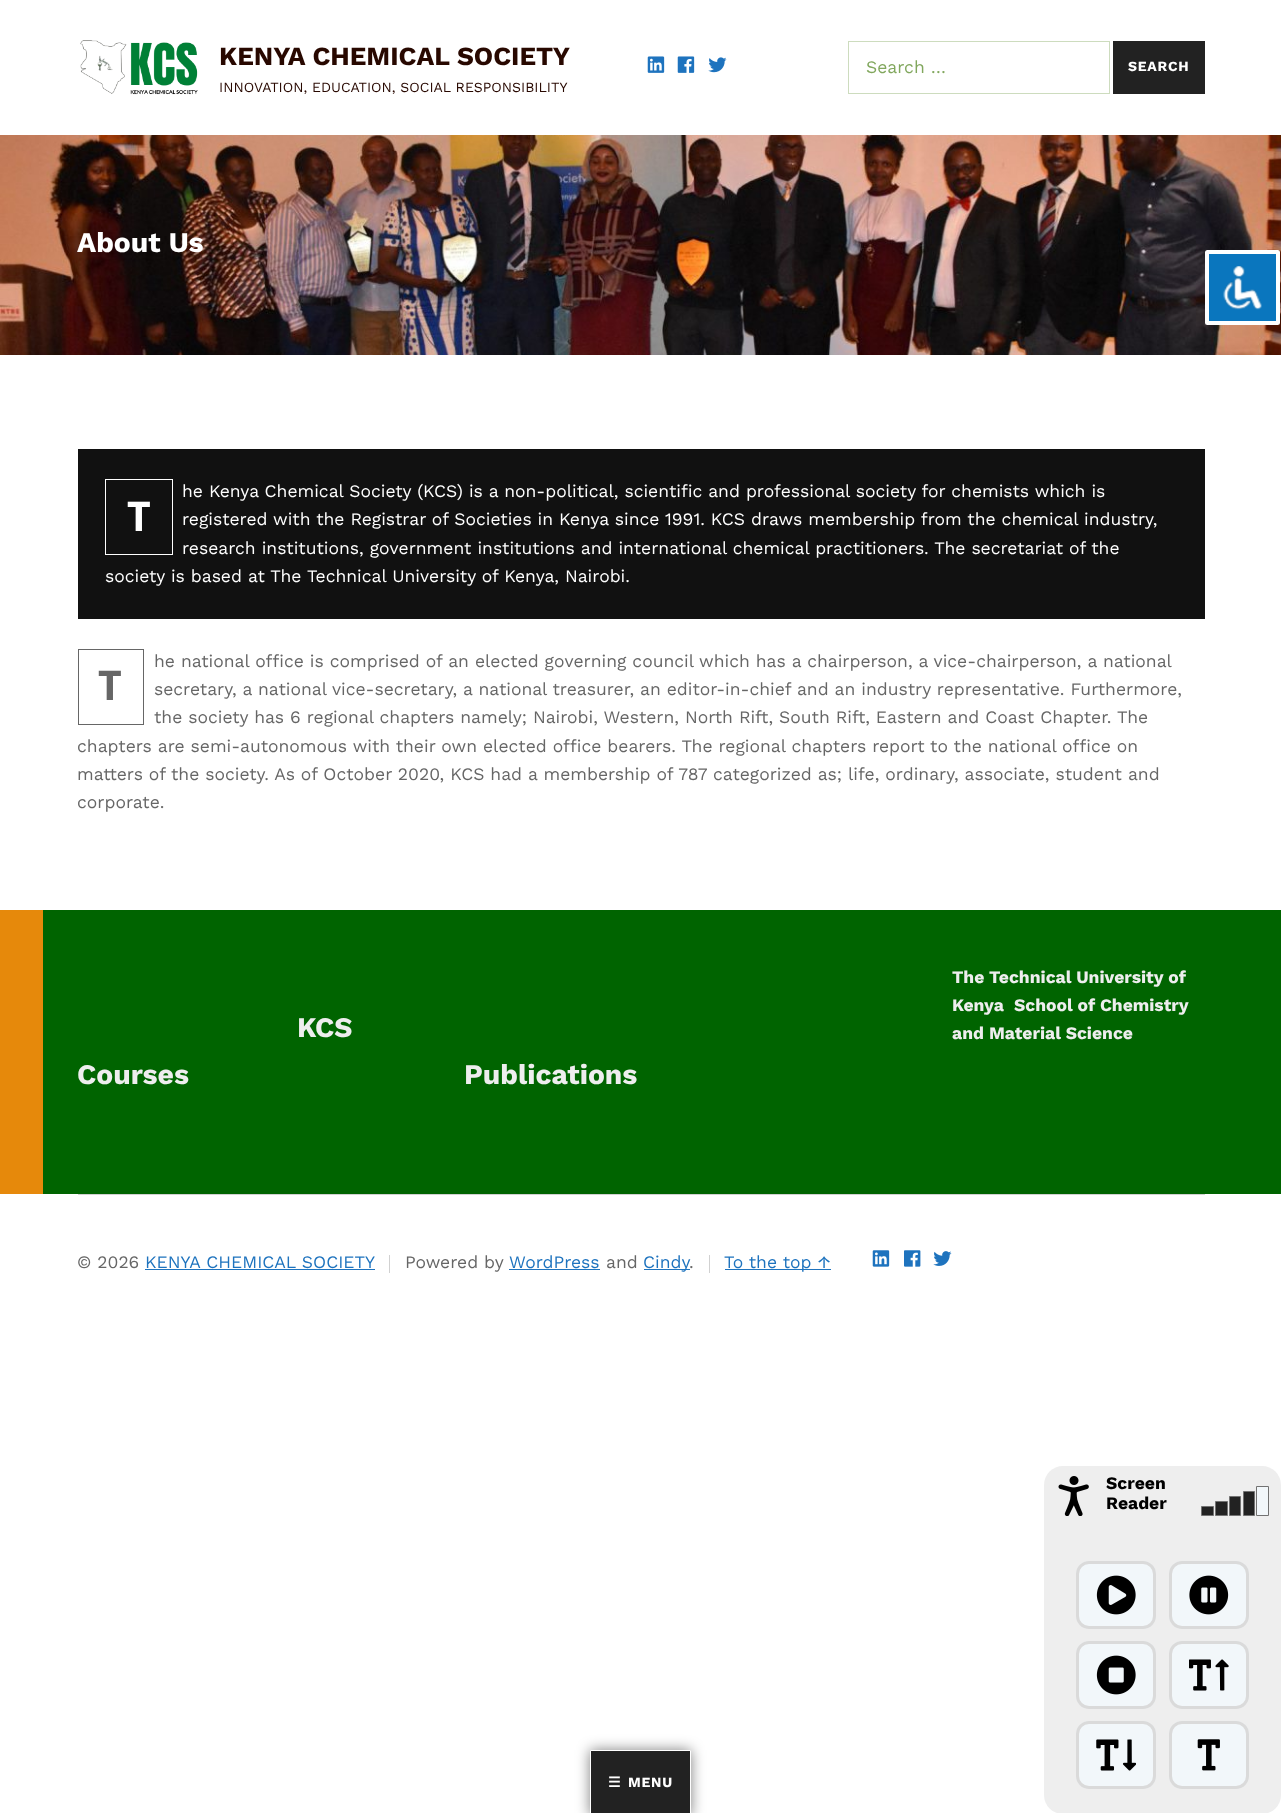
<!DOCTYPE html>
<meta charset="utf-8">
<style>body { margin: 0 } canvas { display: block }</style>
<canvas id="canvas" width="1281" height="1813"></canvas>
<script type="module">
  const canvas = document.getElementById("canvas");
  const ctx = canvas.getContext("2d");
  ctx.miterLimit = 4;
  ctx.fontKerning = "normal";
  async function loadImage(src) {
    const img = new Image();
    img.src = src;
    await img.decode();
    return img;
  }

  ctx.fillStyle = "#ffffff";
  ctx.fillRect(0, 0, 1281, 1813);
  ctx.drawImage(await loadImage("img1.png"), 80, 40, 118, 55);
  ctx.font = "bold 26.25px Work Sans";
  ctx.fillStyle = "#280800";
  ctx.fillText("KENYA CHEMICAL SOCIETY", 219, 65);
  ctx.font = "14px Work Sans";
  ctx.fillText("INNOVATION, EDUCATION, SOCIAL RESPONSIBILITY", 219, 92);
  ctx.drawImage(await loadImage("img2.png"), 647, 56, 18, 17);
  ctx.drawImage(await loadImage("img3.png"), 677, 56, 18, 17);
  ctx.drawImage(await loadImage("img4.png"), 708, 57, 19, 16);
  ctx.strokeStyle = "#cddcbe";
  ctx.strokeRect(848.5, 41.5, 261, 52);
  ctx.font = "17.5px Work Sans";
  ctx.fillStyle = "#81a75d";
  ctx.fillText("Search …", 866, 73);
  ctx.fillStyle = "#222222";
  ctx.fillRect(1113, 41, 92, 53);
  ctx.letterSpacing = "0.75px";
  ctx.font = "bold 14px Work Sans";
  ctx.fillStyle = "#ffffff";
  ctx.fillText("SEARCH", 1128, 71);
  ctx.fillStyle = "rgba(0, 0, 0, 0.5)";
  ctx.filter = "blur(7px)";
  ctx.beginPath();
  ctx.rect(590, 1750, 101, 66);
  ctx.fill();
  ctx.filter = "none";
  ctx.fillStyle = "#222222";
  ctx.beginPath();
  ctx.rect(590.5, 1750.5, 100, 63);
  ctx.fill();
  ctx.strokeStyle = "#ffffff";
  ctx.stroke();
  ctx.font = "bold 14px DejaVu Sans";
  ctx.fillStyle = "#ffffff";
  ctx.fillText("☰", 608, 1787);
  ctx.font = "bold 14px Work Sans";
  ctx.fillText("MENU", 628, 1787);
  ctx.drawImage(await loadImage("img5.png"), 0, 135, 1281, 220);
  ctx.letterSpacing = "0px";
  ctx.font = "bold 28.25px Work Sans";
  ctx.fillText("About Us", 77, 252);
  ctx.fillStyle = "#111111";
  ctx.fillRect(78, 449, 1127, 170);
  ctx.font = "17.5px Work Sans";
  ctx.fillStyle = "#ffffff";
  ctx.fillText("he Kenya Chemical Society (KCS) is a non-political, scientific and professional society for chemists which is", 182, 497);
  ctx.strokeRect(105.5, 479.5, 67, 75);
  ctx.font = "bold 41px Noto Sans";
  ctx.fillText("T", 127, 531);
  ctx.font = "17.5px Work Sans";
  ctx.fillText("registered with the Registrar of Societies in Kenya since 1991. KCS draws membership from the chemical industry,", 182, 525);
  ctx.fillText("research institutions, government institutions and international chemical practitioners. The secretariat of the", 182, 554);
  ctx.fillText("society is based at The Technical University of Kenya, Nairobi.", 105, 582);
  ctx.fillStyle = "#666666";
  ctx.fillText("he national office is comprised of an elected governing council which has a chairperson, a vice-chairperson, a national", 154, 667);
  ctx.strokeStyle = "#666666";
  ctx.strokeRect(78.5, 649.5, 65, 75);
  ctx.font = "bold 41px Noto Sans";
  ctx.fillText("T", 98, 700);
  ctx.font = "17.5px Work Sans";
  ctx.fillText("secretary, a national vice-secretary, a national treasurer, an editor-in-chief and an industry representative. Furthermore,", 154, 695);
  ctx.fillText("the society has 6 regional chapters namely; Nairobi, Western, North Rift, South Rift, Eastern and Coast Chapter. The", 154, 723);
  ctx.fillText("chapters are semi-autonomous with their own elected office bearers. The regional chapters report to the national office on", 77, 752);
  ctx.fillText("matters of the society. As of October 2020, KCS had a membership of 787 categorized as; life, ordinary, associate, student and", 77, 780);
  ctx.fillText("corporate.", 77, 808);
  ctx.fillStyle = "#e6890b";
  ctx.fillRect(0, 910, 43, 284);
  ctx.fillStyle = "#006400";
  ctx.fillRect(43, 910, 1238, 284);
  ctx.font = "bold 17.5px Work Sans";
  ctx.fillStyle = "#eeeeee";
  ctx.fillText("The Technical University of", 952, 983);
  ctx.fillText("Kenya", 952, 1011);
  ctx.fillText("School of Chemistry", 1014, 1011);
  ctx.fillText("and Material Science", 952, 1039);
  ctx.font = "bold 28.25px Work Sans";
  ctx.fillText("KCS", 297, 1037);
  ctx.fillText("Courses", 77, 1084);
  ctx.fillText("Publications", 464, 1084);
  ctx.fillStyle = "#d1d1d1";
  ctx.fillRect(78, 1194, 1127, 1);
  ctx.font = "17.5px Work Sans";
  ctx.fillStyle = "#666666";
  ctx.fillText("© 2026", 77, 1268);
  ctx.fillStyle = "#1e73be";
  ctx.fillText("KENYA CHEMICAL SOCIETY", 145, 1268);
  ctx.fillRect(145, 1269, 230, 1);
  ctx.fillStyle = "#d1d1d1";
  ctx.fillRect(389, 1255, 1, 18);
  ctx.fillStyle = "#666666";
  ctx.fillText("Powered by", 405, 1268);
  ctx.fillStyle = "#1e73be";
  ctx.fillText("WordPress", 509, 1268);
  ctx.fillRect(509, 1269, 91, 1);
  ctx.fillStyle = "#666666";
  ctx.fillText("and", 606, 1268);
  ctx.fillStyle = "#1e73be";
  ctx.fillRect(644, 1269, 46, 1);
  ctx.fillText("Cindy", 643, 1268);
  ctx.fillStyle = "#666666";
  ctx.fillText(".", 689, 1268);
  ctx.fillStyle = "#d1d1d1";
  ctx.fillRect(709, 1255, 1, 18);
  ctx.fillStyle = "#1e73be";
  ctx.fillRect(725, 1269, 106, 1);
  ctx.fillText("To the top ↑", 724, 1268);
  ctx.drawImage(await loadImage("img6.png"), 872, 1250, 18, 17);
  ctx.drawImage(await loadImage("img7.png"), 904, 1250, 17, 17);
  ctx.drawImage(await loadImage("img8.png"), 933, 1251, 19, 15);
  ctx.fillStyle = "#0a76be";
  ctx.beginPath();
  ctx.roundRect(1207, 252, 71, 71, 0.5);
  ctx.fill();
  ctx.strokeStyle = "#ffffff";
  ctx.lineWidth = 4;
  ctx.stroke();
  ctx.drawImage(await loadImage("img9.png"), 1223, 266, 39, 44);
  ctx.fillStyle = "#eeeeee";
  ctx.beginPath();
  ctx.roundRect(1044, 1466, 237, 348, 19);
  ctx.fill();
  ctx.drawImage(await loadImage("img10.png"), 1058, 1476, 31, 40);
  ctx.font = "bold 17.5px Work Sans";
  ctx.fillStyle = "#000000";
  ctx.fillText("Screen", 1106, 1489);
  ctx.fillText("Reader", 1106, 1509);
  ctx.fillStyle = "#222222";
  ctx.beginPath();
  ctx.rect(1201.5, 1506.5, 12, 9);
  ctx.fill();
  ctx.strokeStyle = "#727272";
  ctx.lineWidth = 1;
  ctx.stroke();
  ctx.beginPath();
  ctx.rect(1215.5, 1501.5, 12, 14);
  ctx.fill();
  ctx.stroke();
  ctx.beginPath();
  ctx.rect(1229.5, 1496.5, 11, 19);
  ctx.fill();
  ctx.stroke();
  ctx.beginPath();
  ctx.rect(1243.5, 1491.5, 11, 24);
  ctx.fill();
  ctx.stroke();
  ctx.fillStyle = "#f2f7fa";
  ctx.beginPath();
  ctx.rect(1256.5, 1486.5, 12, 29);
  ctx.fill();
  ctx.stroke();
  ctx.beginPath();
  ctx.roundRect(1076, 1561, 80, 68, 13);
  ctx.fill();
  ctx.drawImage(await loadImage("img11.png"), 1096, 1575, 40, 40);
  ctx.beginPath();
  ctx.roundRect(1077.5, 1562.5, 77, 65, 11.5);
  ctx.strokeStyle = "#dadada";
  ctx.lineWidth = 3;
  ctx.stroke();
  ctx.beginPath();
  ctx.roundRect(1169, 1561, 80, 68, 13);
  ctx.fill();
  ctx.drawImage(await loadImage("img12.png"), 1189, 1575, 40, 40);
  ctx.beginPath();
  ctx.roundRect(1170.5, 1562.5, 77, 65, 11.5);
  ctx.stroke();
  ctx.beginPath();
  ctx.roundRect(1076, 1641, 80, 68, 13);
  ctx.fill();
  ctx.drawImage(await loadImage("img13.png"), 1096, 1655, 40, 40);
  ctx.beginPath();
  ctx.roundRect(1077.5, 1642.5, 77, 65, 11.5);
  ctx.stroke();
  ctx.beginPath();
  ctx.roundRect(1169, 1641, 80, 68, 13);
  ctx.fill();
  ctx.drawImage(await loadImage("img14.png"), 1189, 1659, 40, 32);
  ctx.beginPath();
  ctx.roundRect(1170.5, 1642.5, 77, 65, 11.5);
  ctx.stroke();
  ctx.beginPath();
  ctx.roundRect(1076, 1721, 80, 68, 13);
  ctx.fill();
  ctx.drawImage(await loadImage("img15.png"), 1096, 1739, 40, 32);
  ctx.beginPath();
  ctx.roundRect(1077.5, 1722.5, 77, 65, 11.5);
  ctx.stroke();
  ctx.beginPath();
  ctx.roundRect(1169, 1721, 80, 68, 13);
  ctx.fill();
  ctx.drawImage(await loadImage("img16.png"), 1197, 1739, 23, 32);
  ctx.beginPath();
  ctx.roundRect(1170.5, 1722.5, 77, 65, 11.5);
  ctx.stroke();
</script>
